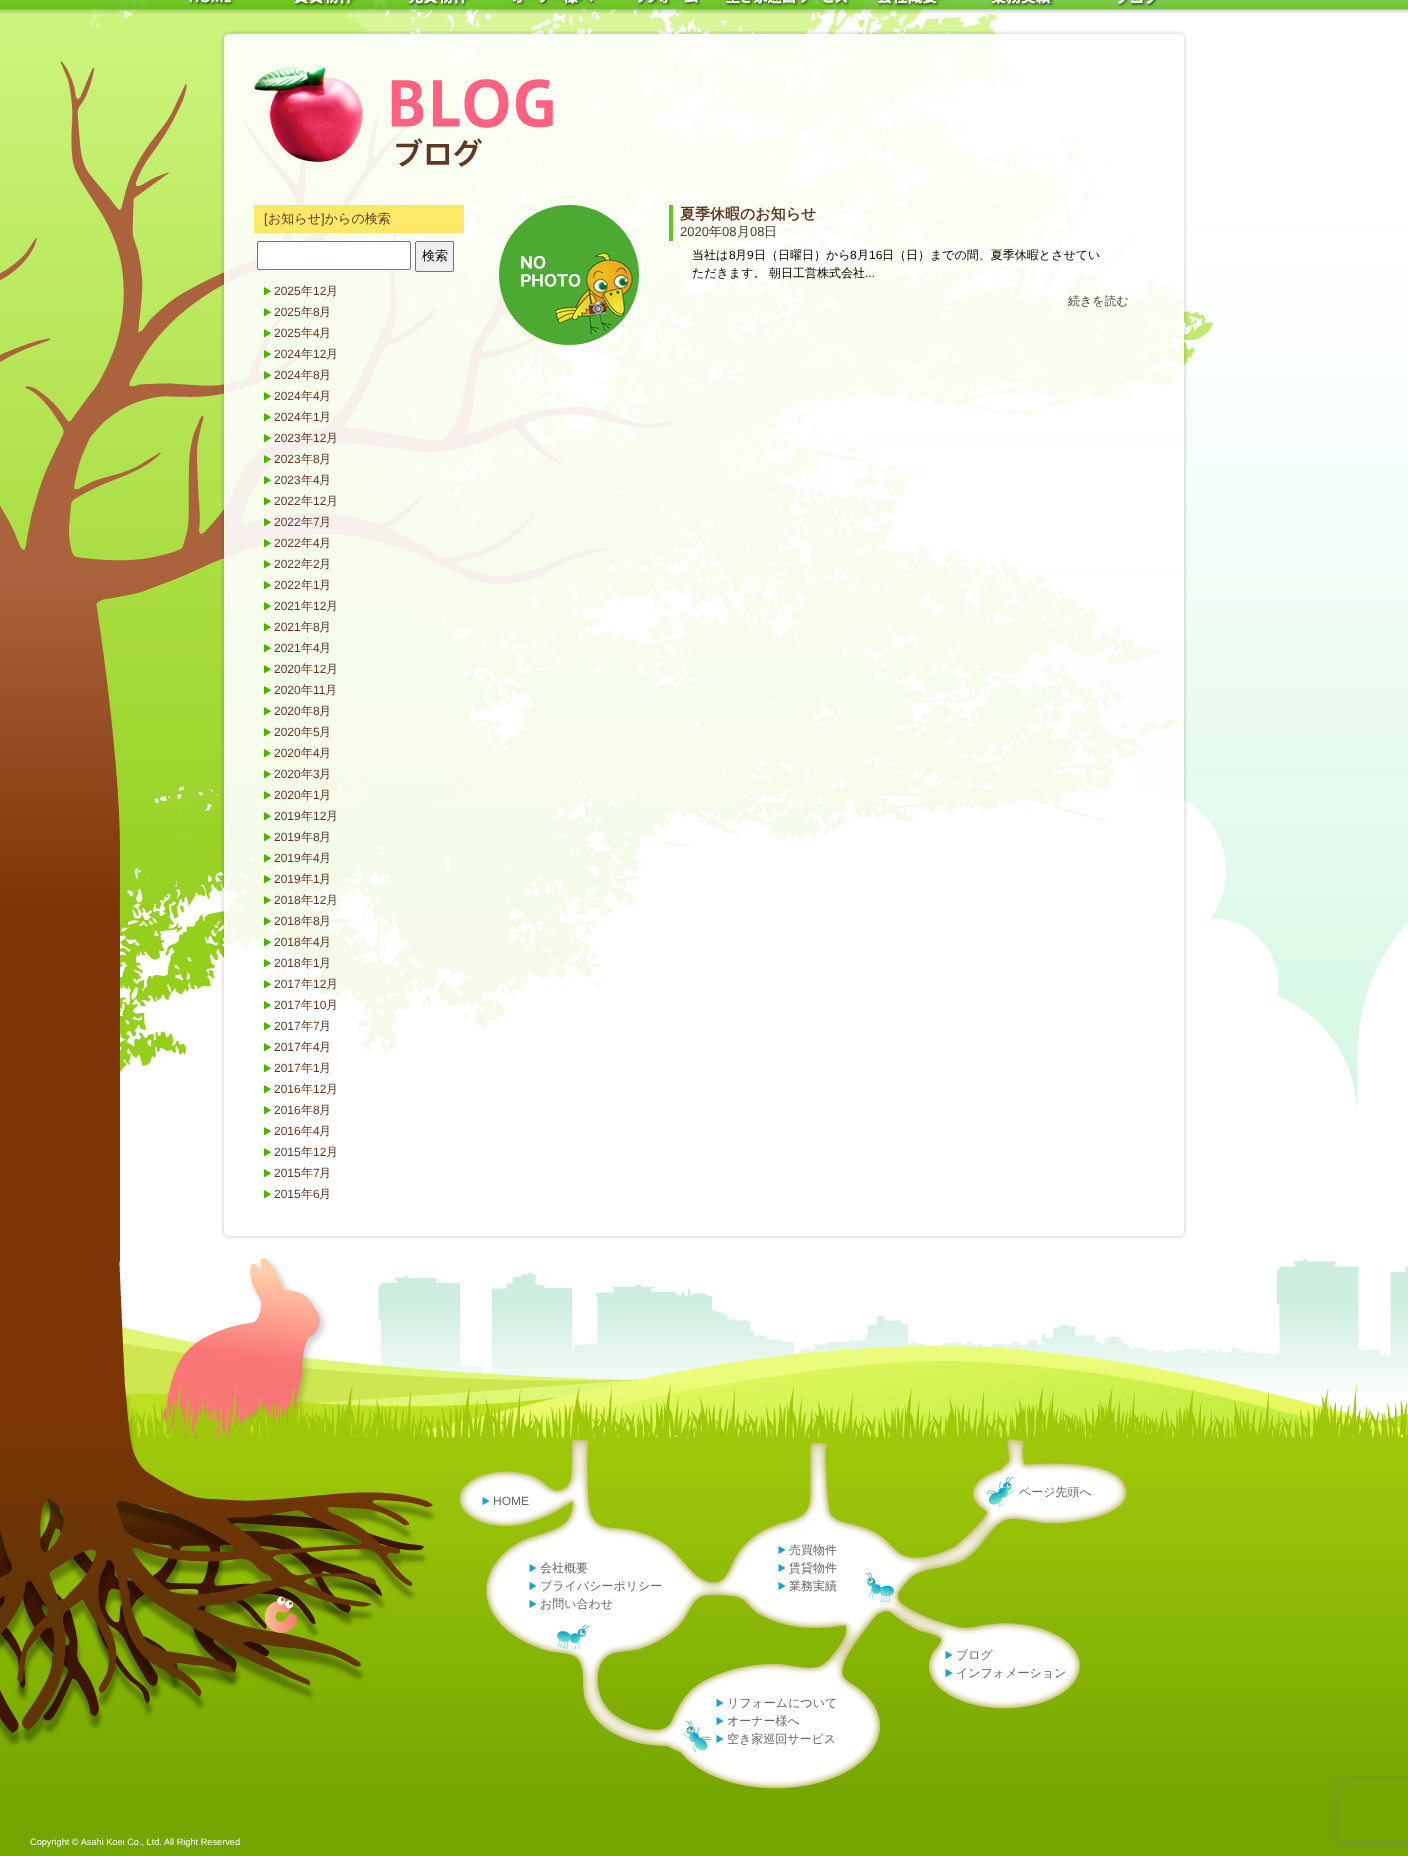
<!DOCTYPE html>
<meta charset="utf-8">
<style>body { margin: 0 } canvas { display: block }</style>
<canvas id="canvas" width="1408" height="1856"></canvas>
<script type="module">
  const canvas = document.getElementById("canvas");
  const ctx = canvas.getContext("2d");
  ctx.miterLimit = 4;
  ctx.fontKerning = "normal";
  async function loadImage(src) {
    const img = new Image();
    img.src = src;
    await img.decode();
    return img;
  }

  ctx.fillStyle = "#ffffff";
  ctx.fillRect(0, 0, 1408, 1856);
  ctx.drawImage(await loadImage("img1.png"), 123, 0, 1285, 1110);
  ctx.drawImage(await loadImage("img2.png"), 0, 0, 997, 34);
  ctx.drawImage(await loadImage("img3.png"), 0, 0, 1408, 14);
  ctx.drawImage(await loadImage("img4.png"), 189, 0, 45, 6);
  ctx.drawImage(await loadImage("img5.png"), 294, 0, 62, 7);
  ctx.drawImage(await loadImage("img6.png"), 407, 0, 63, 7);
  ctx.drawImage(await loadImage("img7.png"), 511, 0, 85, 7);
  ctx.drawImage(await loadImage("img8.png"), 636, 0, 65, 6);
  ctx.drawImage(await loadImage("img9.png"), 725, 0, 125, 7);
  ctx.drawImage(await loadImage("img10.png"), 877, 0, 63, 7);
  ctx.drawImage(await loadImage("img11.png"), 990, 0, 64, 7);
  ctx.drawImage(await loadImage("img12.png"), 1117, 0, 41, 7);
  ctx.drawImage(await loadImage("img13.png"), 120, 597, 1288, 659);
  ctx.fillStyle = "#7e3506";
  ctx.fillRect(0, 1072, 120, 184);
  ctx.drawImage(await loadImage("img14.png"), 0, 34, 1213, 1038);
  ctx.save();
  ctx.beginPath();
  ctx.moveTo(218, 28);
  ctx.lineTo(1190, 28);
  ctx.lineTo(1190, 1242);
  ctx.lineTo(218, 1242);
  ctx.closePath();
  ctx.moveTo(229, 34);
  ctx.lineTo(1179, 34);
  ctx.bezierCurveTo(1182, 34, 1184, 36, 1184, 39);
  ctx.lineTo(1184, 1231);
  ctx.bezierCurveTo(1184, 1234, 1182, 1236, 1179, 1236);
  ctx.lineTo(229, 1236);
  ctx.bezierCurveTo(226, 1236, 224, 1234, 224, 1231);
  ctx.lineTo(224, 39);
  ctx.bezierCurveTo(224, 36, 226, 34, 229, 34);
  ctx.closePath();
  ctx.clip("evenodd");
  ctx.fillStyle = "rgba(0, 0, 0, 0.1)";
  ctx.filter = "blur(1px)";
  ctx.beginPath();
  ctx.roundRect(222, 32, 964, 1206, 7);
  ctx.fill();
  ctx.filter = "none";
  ctx.restore();
  ctx.fillStyle = "rgba(255, 255, 255, 0.9)";
  ctx.beginPath();
  ctx.roundRect(224, 34, 960, 1202, 5);
  ctx.fill();
  ctx.drawImage(await loadImage("img15.png"), 254, 65, 299, 102);
  ctx.fillStyle = "#fee867";
  ctx.fillRect(254, 205, 210, 28);
  ctx.font = "13px Liberation Sans";
  ctx.fillStyle = "#603823";
  ctx.fillText("[", 264, 223);
  ctx.font = "500 13px WenQuanYi Zen Hei";
  ctx.fillText("お知らせ からの検索", 268, 223);
  ctx.font = "13px Liberation Sans";
  ctx.fillText("]", 321, 223);
  ctx.fillStyle = "#ffffff";
  ctx.beginPath();
  ctx.roundRect(257.5, 241.5, 153, 28, 1.5);
  ctx.fill();
  ctx.strokeStyle = "#767676";
  ctx.stroke();
  ctx.fillStyle = "#efefef";
  ctx.beginPath();
  ctx.roundRect(415.5, 241.5, 38, 30, 1.5);
  ctx.fill();
  ctx.stroke();
  ctx.font = "500 13px WenQuanYi Zen Hei";
  ctx.fillStyle = "#000000";
  ctx.fillText("検索", 422, 260);
  ctx.drawImage(await loadImage("img16.png"), 264, 287, 7, 9);
  ctx.font = "12px Liberation Sans";
  ctx.fillStyle = "#603823";
  ctx.fillText("2025", 274, 295);
  ctx.font = "500 12px WenQuanYi Zen Hei";
  ctx.fillText("年", 301, 295);
  ctx.font = "12px Liberation Sans";
  ctx.fillText("12", 313, 295);
  ctx.font = "500 12px WenQuanYi Zen Hei";
  ctx.fillText("月", 326, 295);
  ctx.drawImage(await loadImage("img17.png"), 264, 308, 7, 9);
  ctx.font = "12px Liberation Sans";
  ctx.fillText("2025", 274, 316);
  ctx.font = "500 12px WenQuanYi Zen Hei";
  ctx.fillText("年", 301, 316);
  ctx.font = "12px Liberation Sans";
  ctx.fillText("8", 313, 316);
  ctx.font = "500 12px WenQuanYi Zen Hei";
  ctx.fillText("月", 319, 316);
  ctx.drawImage(await loadImage("img18.png"), 264, 329, 7, 9);
  ctx.font = "12px Liberation Sans";
  ctx.fillText("2025", 274, 337);
  ctx.font = "500 12px WenQuanYi Zen Hei";
  ctx.fillText("年", 301, 337);
  ctx.font = "12px Liberation Sans";
  ctx.fillText("4", 313, 337);
  ctx.font = "500 12px WenQuanYi Zen Hei";
  ctx.fillText("月", 319, 337);
  ctx.drawImage(await loadImage("img19.png"), 264, 350, 7, 9);
  ctx.font = "12px Liberation Sans";
  ctx.fillText("2024", 274, 358);
  ctx.font = "500 12px WenQuanYi Zen Hei";
  ctx.fillText("年", 301, 358);
  ctx.font = "12px Liberation Sans";
  ctx.fillText("12", 313, 358);
  ctx.font = "500 12px WenQuanYi Zen Hei";
  ctx.fillText("月", 326, 358);
  ctx.drawImage(await loadImage("img20.png"), 264, 371, 7, 9);
  ctx.font = "12px Liberation Sans";
  ctx.fillText("2024", 274, 379);
  ctx.font = "500 12px WenQuanYi Zen Hei";
  ctx.fillText("年", 301, 379);
  ctx.font = "12px Liberation Sans";
  ctx.fillText("8", 313, 379);
  ctx.font = "500 12px WenQuanYi Zen Hei";
  ctx.fillText("月", 319, 379);
  ctx.drawImage(await loadImage("img21.png"), 264, 392, 7, 9);
  ctx.font = "12px Liberation Sans";
  ctx.fillText("2024", 274, 400);
  ctx.font = "500 12px WenQuanYi Zen Hei";
  ctx.fillText("年", 301, 400);
  ctx.font = "12px Liberation Sans";
  ctx.fillText("4", 313, 400);
  ctx.font = "500 12px WenQuanYi Zen Hei";
  ctx.fillText("月", 319, 400);
  ctx.drawImage(await loadImage("img22.png"), 264, 413, 7, 9);
  ctx.font = "12px Liberation Sans";
  ctx.fillText("2024", 274, 421);
  ctx.font = "500 12px WenQuanYi Zen Hei";
  ctx.fillText("年", 301, 421);
  ctx.font = "12px Liberation Sans";
  ctx.fillText("1", 313, 421);
  ctx.font = "500 12px WenQuanYi Zen Hei";
  ctx.fillText("月", 319, 421);
  ctx.drawImage(await loadImage("img23.png"), 264, 434, 7, 9);
  ctx.font = "12px Liberation Sans";
  ctx.fillText("2023", 274, 442);
  ctx.font = "500 12px WenQuanYi Zen Hei";
  ctx.fillText("年", 301, 442);
  ctx.font = "12px Liberation Sans";
  ctx.fillText("12", 313, 442);
  ctx.font = "500 12px WenQuanYi Zen Hei";
  ctx.fillText("月", 326, 442);
  ctx.drawImage(await loadImage("img24.png"), 264, 455, 7, 9);
  ctx.font = "12px Liberation Sans";
  ctx.fillText("2023", 274, 463);
  ctx.font = "500 12px WenQuanYi Zen Hei";
  ctx.fillText("年", 301, 463);
  ctx.font = "12px Liberation Sans";
  ctx.fillText("8", 313, 463);
  ctx.font = "500 12px WenQuanYi Zen Hei";
  ctx.fillText("月", 319, 463);
  ctx.drawImage(await loadImage("img25.png"), 264, 476, 7, 9);
  ctx.font = "12px Liberation Sans";
  ctx.fillText("2023", 274, 484);
  ctx.font = "500 12px WenQuanYi Zen Hei";
  ctx.fillText("年", 301, 484);
  ctx.font = "12px Liberation Sans";
  ctx.fillText("4", 313, 484);
  ctx.font = "500 12px WenQuanYi Zen Hei";
  ctx.fillText("月", 319, 484);
  ctx.drawImage(await loadImage("img26.png"), 264, 497, 7, 9);
  ctx.font = "12px Liberation Sans";
  ctx.fillText("2022", 274, 505);
  ctx.font = "500 12px WenQuanYi Zen Hei";
  ctx.fillText("年", 301, 505);
  ctx.font = "12px Liberation Sans";
  ctx.fillText("12", 313, 505);
  ctx.font = "500 12px WenQuanYi Zen Hei";
  ctx.fillText("月", 326, 505);
  ctx.drawImage(await loadImage("img27.png"), 264, 518, 7, 9);
  ctx.font = "12px Liberation Sans";
  ctx.fillText("2022", 274, 526);
  ctx.font = "500 12px WenQuanYi Zen Hei";
  ctx.fillText("年", 301, 526);
  ctx.font = "12px Liberation Sans";
  ctx.fillText("7", 313, 526);
  ctx.font = "500 12px WenQuanYi Zen Hei";
  ctx.fillText("月", 319, 526);
  ctx.drawImage(await loadImage("img28.png"), 264, 539, 7, 9);
  ctx.font = "12px Liberation Sans";
  ctx.fillText("2022", 274, 547);
  ctx.font = "500 12px WenQuanYi Zen Hei";
  ctx.fillText("年", 301, 547);
  ctx.font = "12px Liberation Sans";
  ctx.fillText("4", 313, 547);
  ctx.font = "500 12px WenQuanYi Zen Hei";
  ctx.fillText("月", 319, 547);
  ctx.drawImage(await loadImage("img29.png"), 264, 560, 7, 9);
  ctx.font = "12px Liberation Sans";
  ctx.fillText("2022", 274, 568);
  ctx.font = "500 12px WenQuanYi Zen Hei";
  ctx.fillText("年", 301, 568);
  ctx.font = "12px Liberation Sans";
  ctx.fillText("2", 313, 568);
  ctx.font = "500 12px WenQuanYi Zen Hei";
  ctx.fillText("月", 319, 568);
  ctx.drawImage(await loadImage("img30.png"), 264, 581, 7, 9);
  ctx.font = "12px Liberation Sans";
  ctx.fillText("2022", 274, 589);
  ctx.font = "500 12px WenQuanYi Zen Hei";
  ctx.fillText("年", 301, 589);
  ctx.font = "12px Liberation Sans";
  ctx.fillText("1", 313, 589);
  ctx.font = "500 12px WenQuanYi Zen Hei";
  ctx.fillText("月", 319, 589);
  ctx.drawImage(await loadImage("img31.png"), 264, 602, 7, 9);
  ctx.font = "12px Liberation Sans";
  ctx.fillText("2021", 274, 610);
  ctx.font = "500 12px WenQuanYi Zen Hei";
  ctx.fillText("年", 301, 610);
  ctx.font = "12px Liberation Sans";
  ctx.fillText("12", 313, 610);
  ctx.font = "500 12px WenQuanYi Zen Hei";
  ctx.fillText("月", 326, 610);
  ctx.drawImage(await loadImage("img32.png"), 264, 623, 7, 9);
  ctx.font = "12px Liberation Sans";
  ctx.fillText("2021", 274, 631);
  ctx.font = "500 12px WenQuanYi Zen Hei";
  ctx.fillText("年", 301, 631);
  ctx.font = "12px Liberation Sans";
  ctx.fillText("8", 313, 631);
  ctx.font = "500 12px WenQuanYi Zen Hei";
  ctx.fillText("月", 319, 631);
  ctx.drawImage(await loadImage("img33.png"), 264, 644, 7, 9);
  ctx.font = "12px Liberation Sans";
  ctx.fillText("2021", 274, 652);
  ctx.font = "500 12px WenQuanYi Zen Hei";
  ctx.fillText("年", 301, 652);
  ctx.font = "12px Liberation Sans";
  ctx.fillText("4", 313, 652);
  ctx.font = "500 12px WenQuanYi Zen Hei";
  ctx.fillText("月", 319, 652);
  ctx.drawImage(await loadImage("img34.png"), 264, 665, 7, 9);
  ctx.font = "12px Liberation Sans";
  ctx.fillText("2020", 274, 673);
  ctx.font = "500 12px WenQuanYi Zen Hei";
  ctx.fillText("年", 301, 673);
  ctx.font = "12px Liberation Sans";
  ctx.fillText("12", 313, 673);
  ctx.font = "500 12px WenQuanYi Zen Hei";
  ctx.fillText("月", 326, 673);
  ctx.drawImage(await loadImage("img35.png"), 264, 686, 7, 9);
  ctx.font = "12px Liberation Sans";
  ctx.fillText("2020", 274, 694);
  ctx.font = "500 12px WenQuanYi Zen Hei";
  ctx.fillText("年", 301, 694);
  ctx.font = "12px Liberation Sans";
  ctx.fillText("11", 313, 694);
  ctx.font = "500 12px WenQuanYi Zen Hei";
  ctx.fillText("月", 325, 694);
  ctx.drawImage(await loadImage("img36.png"), 264, 707, 7, 9);
  ctx.font = "12px Liberation Sans";
  ctx.fillText("2020", 274, 715);
  ctx.font = "500 12px WenQuanYi Zen Hei";
  ctx.fillText("年", 301, 715);
  ctx.font = "12px Liberation Sans";
  ctx.fillText("8", 313, 715);
  ctx.font = "500 12px WenQuanYi Zen Hei";
  ctx.fillText("月", 319, 715);
  ctx.drawImage(await loadImage("img37.png"), 264, 728, 7, 9);
  ctx.font = "12px Liberation Sans";
  ctx.fillText("2020", 274, 736);
  ctx.font = "500 12px WenQuanYi Zen Hei";
  ctx.fillText("年", 301, 736);
  ctx.font = "12px Liberation Sans";
  ctx.fillText("5", 313, 736);
  ctx.font = "500 12px WenQuanYi Zen Hei";
  ctx.fillText("月", 319, 736);
  ctx.drawImage(await loadImage("img38.png"), 264, 749, 7, 9);
  ctx.font = "12px Liberation Sans";
  ctx.fillText("2020", 274, 757);
  ctx.font = "500 12px WenQuanYi Zen Hei";
  ctx.fillText("年", 301, 757);
  ctx.font = "12px Liberation Sans";
  ctx.fillText("4", 313, 757);
  ctx.font = "500 12px WenQuanYi Zen Hei";
  ctx.fillText("月", 319, 757);
  ctx.drawImage(await loadImage("img39.png"), 264, 770, 7, 9);
  ctx.font = "12px Liberation Sans";
  ctx.fillText("2020", 274, 778);
  ctx.font = "500 12px WenQuanYi Zen Hei";
  ctx.fillText("年", 301, 778);
  ctx.font = "12px Liberation Sans";
  ctx.fillText("3", 313, 778);
  ctx.font = "500 12px WenQuanYi Zen Hei";
  ctx.fillText("月", 319, 778);
  ctx.drawImage(await loadImage("img40.png"), 264, 791, 7, 9);
  ctx.font = "12px Liberation Sans";
  ctx.fillText("2020", 274, 799);
  ctx.font = "500 12px WenQuanYi Zen Hei";
  ctx.fillText("年", 301, 799);
  ctx.font = "12px Liberation Sans";
  ctx.fillText("1", 313, 799);
  ctx.font = "500 12px WenQuanYi Zen Hei";
  ctx.fillText("月", 319, 799);
  ctx.drawImage(await loadImage("img41.png"), 264, 812, 7, 9);
  ctx.font = "12px Liberation Sans";
  ctx.fillText("2019", 274, 820);
  ctx.font = "500 12px WenQuanYi Zen Hei";
  ctx.fillText("年", 301, 820);
  ctx.font = "12px Liberation Sans";
  ctx.fillText("12", 313, 820);
  ctx.font = "500 12px WenQuanYi Zen Hei";
  ctx.fillText("月", 326, 820);
  ctx.drawImage(await loadImage("img41.png"), 264, 833, 7, 9);
  ctx.font = "12px Liberation Sans";
  ctx.fillText("2019", 274, 841);
  ctx.font = "500 12px WenQuanYi Zen Hei";
  ctx.fillText("年", 301, 841);
  ctx.font = "12px Liberation Sans";
  ctx.fillText("8", 313, 841);
  ctx.font = "500 12px WenQuanYi Zen Hei";
  ctx.fillText("月", 319, 841);
  ctx.drawImage(await loadImage("img42.png"), 264, 854, 7, 9);
  ctx.font = "12px Liberation Sans";
  ctx.fillText("2019", 274, 862);
  ctx.font = "500 12px WenQuanYi Zen Hei";
  ctx.fillText("年", 301, 862);
  ctx.font = "12px Liberation Sans";
  ctx.fillText("4", 313, 862);
  ctx.font = "500 12px WenQuanYi Zen Hei";
  ctx.fillText("月", 319, 862);
  ctx.drawImage(await loadImage("img43.png"), 264, 875, 7, 9);
  ctx.font = "12px Liberation Sans";
  ctx.fillText("2019", 274, 883);
  ctx.font = "500 12px WenQuanYi Zen Hei";
  ctx.fillText("年", 301, 883);
  ctx.font = "12px Liberation Sans";
  ctx.fillText("1", 313, 883);
  ctx.font = "500 12px WenQuanYi Zen Hei";
  ctx.fillText("月", 319, 883);
  ctx.drawImage(await loadImage("img44.png"), 264, 896, 7, 9);
  ctx.font = "12px Liberation Sans";
  ctx.fillText("2018", 274, 904);
  ctx.font = "500 12px WenQuanYi Zen Hei";
  ctx.fillText("年", 301, 904);
  ctx.font = "12px Liberation Sans";
  ctx.fillText("12", 313, 904);
  ctx.font = "500 12px WenQuanYi Zen Hei";
  ctx.fillText("月", 326, 904);
  ctx.drawImage(await loadImage("img45.png"), 264, 917, 7, 9);
  ctx.font = "12px Liberation Sans";
  ctx.fillText("2018", 274, 925);
  ctx.font = "500 12px WenQuanYi Zen Hei";
  ctx.fillText("年", 301, 925);
  ctx.font = "12px Liberation Sans";
  ctx.fillText("8", 313, 925);
  ctx.font = "500 12px WenQuanYi Zen Hei";
  ctx.fillText("月", 319, 925);
  ctx.drawImage(await loadImage("img46.png"), 264, 938, 7, 9);
  ctx.font = "12px Liberation Sans";
  ctx.fillText("2018", 274, 946);
  ctx.font = "500 12px WenQuanYi Zen Hei";
  ctx.fillText("年", 301, 946);
  ctx.font = "12px Liberation Sans";
  ctx.fillText("4", 313, 946);
  ctx.font = "500 12px WenQuanYi Zen Hei";
  ctx.fillText("月", 319, 946);
  ctx.drawImage(await loadImage("img47.png"), 264, 959, 7, 9);
  ctx.font = "12px Liberation Sans";
  ctx.fillText("2018", 274, 967);
  ctx.font = "500 12px WenQuanYi Zen Hei";
  ctx.fillText("年", 301, 967);
  ctx.font = "12px Liberation Sans";
  ctx.fillText("1", 313, 967);
  ctx.font = "500 12px WenQuanYi Zen Hei";
  ctx.fillText("月", 319, 967);
  ctx.drawImage(await loadImage("img47.png"), 264, 980, 7, 9);
  ctx.font = "12px Liberation Sans";
  ctx.fillText("2017", 274, 988);
  ctx.font = "500 12px WenQuanYi Zen Hei";
  ctx.fillText("年", 301, 988);
  ctx.font = "12px Liberation Sans";
  ctx.fillText("12", 313, 988);
  ctx.font = "500 12px WenQuanYi Zen Hei";
  ctx.fillText("月", 326, 988);
  ctx.drawImage(await loadImage("img47.png"), 264, 1001, 7, 9);
  ctx.font = "12px Liberation Sans";
  ctx.fillText("2017", 274, 1009);
  ctx.font = "500 12px WenQuanYi Zen Hei";
  ctx.fillText("年", 301, 1009);
  ctx.font = "12px Liberation Sans";
  ctx.fillText("10", 313, 1009);
  ctx.font = "500 12px WenQuanYi Zen Hei";
  ctx.fillText("月", 326, 1009);
  ctx.drawImage(await loadImage("img47.png"), 264, 1022, 7, 9);
  ctx.font = "12px Liberation Sans";
  ctx.fillText("2017", 274, 1030);
  ctx.font = "500 12px WenQuanYi Zen Hei";
  ctx.fillText("年", 301, 1030);
  ctx.font = "12px Liberation Sans";
  ctx.fillText("7", 313, 1030);
  ctx.font = "500 12px WenQuanYi Zen Hei";
  ctx.fillText("月", 319, 1030);
  ctx.drawImage(await loadImage("img47.png"), 264, 1043, 7, 9);
  ctx.font = "12px Liberation Sans";
  ctx.fillText("2017", 274, 1051);
  ctx.font = "500 12px WenQuanYi Zen Hei";
  ctx.fillText("年", 301, 1051);
  ctx.font = "12px Liberation Sans";
  ctx.fillText("4", 313, 1051);
  ctx.font = "500 12px WenQuanYi Zen Hei";
  ctx.fillText("月", 319, 1051);
  ctx.drawImage(await loadImage("img47.png"), 264, 1064, 7, 9);
  ctx.font = "12px Liberation Sans";
  ctx.fillText("2017", 274, 1072);
  ctx.font = "500 12px WenQuanYi Zen Hei";
  ctx.fillText("年", 301, 1072);
  ctx.font = "12px Liberation Sans";
  ctx.fillText("1", 313, 1072);
  ctx.font = "500 12px WenQuanYi Zen Hei";
  ctx.fillText("月", 319, 1072);
  ctx.drawImage(await loadImage("img47.png"), 264, 1085, 7, 9);
  ctx.font = "12px Liberation Sans";
  ctx.fillText("2016", 274, 1093);
  ctx.font = "500 12px WenQuanYi Zen Hei";
  ctx.fillText("年", 301, 1093);
  ctx.font = "12px Liberation Sans";
  ctx.fillText("12", 313, 1093);
  ctx.font = "500 12px WenQuanYi Zen Hei";
  ctx.fillText("月", 326, 1093);
  ctx.drawImage(await loadImage("img47.png"), 264, 1106, 7, 9);
  ctx.font = "12px Liberation Sans";
  ctx.fillText("2016", 274, 1114);
  ctx.font = "500 12px WenQuanYi Zen Hei";
  ctx.fillText("年", 301, 1114);
  ctx.font = "12px Liberation Sans";
  ctx.fillText("8", 313, 1114);
  ctx.font = "500 12px WenQuanYi Zen Hei";
  ctx.fillText("月", 319, 1114);
  ctx.drawImage(await loadImage("img47.png"), 264, 1127, 7, 9);
  ctx.font = "12px Liberation Sans";
  ctx.fillText("2016", 274, 1135);
  ctx.font = "500 12px WenQuanYi Zen Hei";
  ctx.fillText("年", 301, 1135);
  ctx.font = "12px Liberation Sans";
  ctx.fillText("4", 313, 1135);
  ctx.font = "500 12px WenQuanYi Zen Hei";
  ctx.fillText("月", 319, 1135);
  ctx.drawImage(await loadImage("img47.png"), 264, 1148, 7, 9);
  ctx.font = "12px Liberation Sans";
  ctx.fillText("2015", 274, 1156);
  ctx.font = "500 12px WenQuanYi Zen Hei";
  ctx.fillText("年", 301, 1156);
  ctx.font = "12px Liberation Sans";
  ctx.fillText("12", 313, 1156);
  ctx.font = "500 12px WenQuanYi Zen Hei";
  ctx.fillText("月", 326, 1156);
  ctx.drawImage(await loadImage("img47.png"), 264, 1169, 7, 9);
  ctx.font = "12px Liberation Sans";
  ctx.fillText("2015", 274, 1177);
  ctx.font = "500 12px WenQuanYi Zen Hei";
  ctx.fillText("年", 301, 1177);
  ctx.font = "12px Liberation Sans";
  ctx.fillText("7", 313, 1177);
  ctx.font = "500 12px WenQuanYi Zen Hei";
  ctx.fillText("月", 319, 1177);
  ctx.drawImage(await loadImage("img47.png"), 264, 1190, 7, 9);
  ctx.font = "12px Liberation Sans";
  ctx.fillText("2015", 274, 1198);
  ctx.font = "500 12px WenQuanYi Zen Hei";
  ctx.fillText("年", 301, 1198);
  ctx.font = "12px Liberation Sans";
  ctx.fillText("6", 313, 1198);
  ctx.font = "500 12px WenQuanYi Zen Hei";
  ctx.fillText("月", 319, 1198);
  ctx.drawImage(await loadImage("img48.png"), 499, 205, 140, 140);
  ctx.fillStyle = "#68c31d";
  ctx.fillRect(669, 205, 4, 36);
  ctx.font = "bold 15px WenQuanYi Zen Hei";
  ctx.fillStyle = "#603823";
  ctx.fillText("夏季休暇のお知らせ", 680, 219);
  ctx.font = "13px Liberation Sans";
  ctx.fillStyle = "#4e4036";
  ctx.fillText("2020", 680, 236);
  ctx.font = "500 13px WenQuanYi Zen Hei";
  ctx.fillText("年", 709, 236);
  ctx.font = "13px Liberation Sans";
  ctx.fillText("08", 722, 236);
  ctx.font = "500 13px WenQuanYi Zen Hei";
  ctx.fillText("月", 737, 236);
  ctx.font = "13px Liberation Sans";
  ctx.fillText("08", 750, 236);
  ctx.font = "500 13px WenQuanYi Zen Hei";
  ctx.fillText("日", 764, 236);
  ctx.font = "500 12px WenQuanYi Zen Hei";
  ctx.fillStyle = "#000000";
  ctx.fillText("当社は", 692, 259);
  ctx.font = "12px Liberation Sans";
  ctx.fillText("8", 729, 259);
  ctx.font = "500 12px WenQuanYi Zen Hei";
  ctx.fillText("月", 735, 259);
  ctx.font = "12px Liberation Sans";
  ctx.fillText("9", 747, 259);
  ctx.font = "500 12px WenQuanYi Zen Hei";
  ctx.fillText("日（日曜日）から", 754, 259);
  ctx.font = "12px Liberation Sans";
  ctx.fillText("8", 850, 259);
  ctx.font = "500 12px WenQuanYi Zen Hei";
  ctx.fillText("月", 857, 259);
  ctx.font = "12px Liberation Sans";
  ctx.fillText("16", 869, 259);
  ctx.font = "500 12px WenQuanYi Zen Hei";
  ctx.fillText("日（日）までの間、夏季休暇とさせてい", 882, 259);
  ctx.fillText("ただきます。 朝日工営株式会社", 692, 277);
  ctx.font = "12px Liberation Sans";
  ctx.fillText("...", 865, 277);
  ctx.font = "500 12px WenQuanYi Zen Hei";
  ctx.fillStyle = "#4e4036";
  ctx.fillText("続きを読む", 1068, 305);
  ctx.drawImage(await loadImage("img49.png"), 378, 1259, 1030, 137);
  ctx.drawImage(await loadImage("img50.png"), 0, 1327, 1408, 529);
  ctx.drawImage(await loadImage("img51.png"), 163, 1258, 164, 180);
  ctx.drawImage(await loadImage("img52.png"), 127, 1383, 1281, 70);
  ctx.drawImage(await loadImage("img53.png"), 0, 1256, 436, 491);
  ctx.drawImage(await loadImage("img55.png"), 459, 1439, 668, 350);
  ctx.drawImage(await loadImage("img54.png"), 986, 1477, 28, 31);
  ctx.fillStyle = "#666666";
  ctx.fillText("ページ先頭へ", 1019, 1496);
  ctx.drawImage(await loadImage("img56.png"), 482, 1497, 8, 8);
  ctx.font = "12px Liberation Sans";
  ctx.fillText("HOME", 493, 1505);
  ctx.drawImage(await loadImage("img56.png"), 529, 1564, 8, 8);
  ctx.font = "500 12px WenQuanYi Zen Hei";
  ctx.fillText("会社概要", 540, 1572);
  ctx.drawImage(await loadImage("img56.png"), 529, 1582, 8, 8);
  ctx.fillText("プライバシーポリシー", 540, 1590);
  ctx.drawImage(await loadImage("img56.png"), 529, 1600, 8, 8);
  ctx.fillText("お問い合わせ", 540, 1608);
  ctx.drawImage(await loadImage("img56.png"), 778, 1546, 8, 8);
  ctx.fillText("売買物件", 789, 1554);
  ctx.drawImage(await loadImage("img56.png"), 778, 1564, 8, 8);
  ctx.fillText("賃貸物件", 789, 1572);
  ctx.drawImage(await loadImage("img56.png"), 778, 1582, 8, 8);
  ctx.fillText("業務実績", 789, 1590);
  ctx.drawImage(await loadImage("img56.png"), 945, 1651, 8, 8);
  ctx.fillText("ブログ", 956, 1659);
  ctx.drawImage(await loadImage("img56.png"), 945, 1669, 8, 8);
  ctx.fillText("インフォメーション", 956, 1677);
  ctx.drawImage(await loadImage("img56.png"), 716, 1699, 8, 8);
  ctx.fillText("リフォームについて", 727, 1707);
  ctx.drawImage(await loadImage("img56.png"), 716, 1717, 8, 8);
  ctx.fillText("オーナー様へ", 727, 1725);
  ctx.drawImage(await loadImage("img56.png"), 716, 1735, 8, 8);
  ctx.fillText("空き家巡回サービス", 727, 1743);
  ctx.drawImage(await loadImage("img57.png"), 865, 1572, 29, 30);
  ctx.drawImage(await loadImage("img58.png"), 264, 1596, 33, 37);
  ctx.drawImage(await loadImage("img59.png"), 281, 1598, 11, 7);
  ctx.drawImage(await loadImage("img60.png"), 557, 1624, 34, 25);
  ctx.drawImage(await loadImage("img61.png"), 683, 1721, 27, 32);
  ctx.font = "9.2px Liberation Sans";
  ctx.fillStyle = "#ffffff";
  ctx.fillText("Copyright © Asahi Koei Co., Ltd. All Right Reserved.", 30, 1845);
  ctx.save();
  ctx.beginPath();
  ctx.moveTo(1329, 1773);
  ctx.lineTo(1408, 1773);
  ctx.lineTo(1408, 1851);
  ctx.lineTo(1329, 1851);
  ctx.closePath();
  ctx.moveTo(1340, 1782);
  ctx.lineTo(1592, 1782);
  ctx.bezierCurveTo(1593, 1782, 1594, 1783, 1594, 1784);
  ctx.lineTo(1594, 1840);
  ctx.bezierCurveTo(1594, 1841, 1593, 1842, 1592, 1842);
  ctx.lineTo(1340, 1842);
  ctx.bezierCurveTo(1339, 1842, 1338, 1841, 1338, 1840);
  ctx.lineTo(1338, 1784);
  ctx.bezierCurveTo(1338, 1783, 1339, 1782, 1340, 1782);
  ctx.closePath();
  ctx.clip("evenodd");
  ctx.fillStyle = "#808080";
  ctx.filter = "blur(2.5px)";
  ctx.beginPath();
  ctx.roundRect(1338, 1782, 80, 60, 2);
  ctx.fill();
  ctx.filter = "none";
  ctx.restore();
</script>
